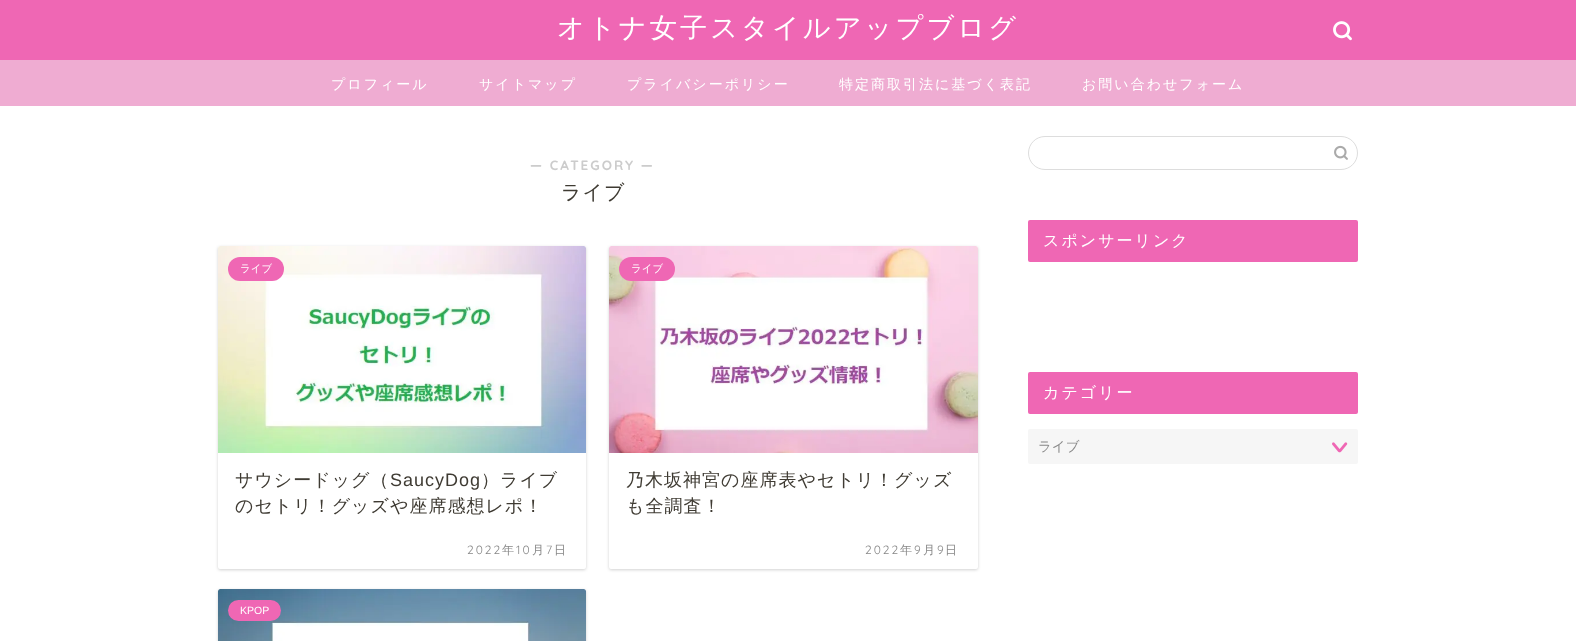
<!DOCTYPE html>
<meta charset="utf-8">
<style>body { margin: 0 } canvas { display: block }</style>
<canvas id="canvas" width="1576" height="641"></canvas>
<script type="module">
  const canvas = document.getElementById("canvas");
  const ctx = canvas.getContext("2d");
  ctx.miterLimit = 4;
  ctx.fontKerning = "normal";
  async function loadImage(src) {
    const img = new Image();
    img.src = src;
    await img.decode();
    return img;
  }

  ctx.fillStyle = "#ffffff";
  ctx.fillRect(0, 0, 1576, 641);
  ctx.fillStyle = "#ef67b4";
  ctx.fillRect(0, 0, 1576, 60);
  ctx.letterSpacing = "3px";
  ctx.font = "500 27.25px WenQuanYi Zen Hei";
  ctx.fillStyle = "#ffffff";
  ctx.fillText("オトナ女子スタイルアップブログ", 557, 37);
  ctx.drawImage(await loadImage("img1.png"), 1333, 21, 19, 20);
  ctx.fillStyle = "#efacd2";
  ctx.fillRect(0, 60, 1576, 46);
  ctx.letterSpacing = "2px";
  ctx.font = "500 14px WenQuanYi Zen Hei";
  ctx.fillStyle = "#ffffff";
  ctx.fillText("プロフィール", 331, 89);
  ctx.fillText("サイトマップ", 479, 89);
  ctx.fillText("プライバシーポリシー", 627, 89);
  ctx.fillText("特定商取引法に基づく表記", 839, 89);
  ctx.fillText("お問い合わせフォーム", 1082, 89);
  ctx.font = "bold 13.5px Quicksand";
  ctx.fillStyle = "#cccccc";
  ctx.fillText("― CATEGORY ―", 530, 170);
  ctx.letterSpacing = "1px";
  ctx.font = "500 20px WenQuanYi Zen Hei";
  ctx.fillStyle = "#3f3b33";
  ctx.fillText("ライブ", 561, 199);
  ctx.fillStyle = "rgba(0, 0, 0, 0.18)";
  ctx.filter = "blur(1.5px)";
  ctx.beginPath();
  ctx.roundRect(218, 247, 368, 323, 2);
  ctx.fill();
  ctx.filter = "none";
  ctx.fillStyle = "#ffffff";
  ctx.beginPath();
  ctx.roundRect(218, 246, 368, 323, 2);
  ctx.fill();
  ctx.drawImage(await loadImage("img2.png"), 218, 246, 368, 207);
  ctx.fillStyle = "#ef67b4";
  ctx.beginPath();
  ctx.roundRect(228, 257, 56, 24, 12);
  ctx.fill();
  ctx.letterSpacing = "0px";
  ctx.font = "500 10.5px WenQuanYi Zen Hei";
  ctx.fillStyle = "#ffffff";
  ctx.fillText("ライブ", 240, 272);
  ctx.letterSpacing = "1px";
  ctx.font = "500 18px WenQuanYi Zen Hei";
  ctx.fillStyle = "#3f3b33";
  ctx.fillText("サウシードッグ（", 235, 486);
  ctx.font = "18px Liberation Sans";
  ctx.fillText("SaucyDog", 390, 486);
  ctx.font = "500 18px WenQuanYi Zen Hei";
  ctx.fillText("）ライブ", 481, 486);
  ctx.fillText("のセトリ！グッズや座席感想レポ！", 235, 512);
  ctx.letterSpacing = "2px";
  ctx.font = "12px Quicksand";
  ctx.fillStyle = "#888888";
  ctx.fillText("2022", 467, 554);
  ctx.font = "500 12px WenQuanYi Zen Hei";
  ctx.fillText("年", 502, 554);
  ctx.font = "12px Quicksand";
  ctx.fillText("10", 516, 554);
  ctx.font = "500 12px WenQuanYi Zen Hei";
  ctx.fillText("月", 532, 554);
  ctx.font = "12px Quicksand";
  ctx.fillText("7", 546, 554);
  ctx.font = "500 12px WenQuanYi Zen Hei";
  ctx.fillText("日", 554, 554);
  ctx.fillStyle = "rgba(0, 0, 0, 0.18)";
  ctx.filter = "blur(1.5px)";
  ctx.beginPath();
  ctx.roundRect(609, 247, 369, 323, 2);
  ctx.fill();
  ctx.filter = "none";
  ctx.fillStyle = "#ffffff";
  ctx.beginPath();
  ctx.roundRect(609, 246, 369, 323, 2);
  ctx.fill();
  ctx.drawImage(await loadImage("img3.png"), 609, 246, 369, 207);
  ctx.fillStyle = "#ef67b4";
  ctx.beginPath();
  ctx.roundRect(619, 257, 56, 24, 12);
  ctx.fill();
  ctx.letterSpacing = "0px";
  ctx.font = "500 10.5px WenQuanYi Zen Hei";
  ctx.fillStyle = "#ffffff";
  ctx.fillText("ライブ", 631, 272);
  ctx.letterSpacing = "1px";
  ctx.font = "500 18px WenQuanYi Zen Hei";
  ctx.fillStyle = "#3f3b33";
  ctx.fillText("乃木坂神宮の座席表やセトリ！グッズ", 626, 486);
  ctx.fillText("も全調査！", 626, 512);
  ctx.letterSpacing = "2px";
  ctx.font = "12px Quicksand";
  ctx.fillStyle = "#888888";
  ctx.fillText("2022", 865, 554);
  ctx.font = "500 12px WenQuanYi Zen Hei";
  ctx.fillText("年", 900, 554);
  ctx.font = "12px Quicksand";
  ctx.fillText("9", 914, 554);
  ctx.font = "500 12px WenQuanYi Zen Hei";
  ctx.fillText("月", 923, 554);
  ctx.font = "12px Quicksand";
  ctx.fillText("9", 937, 554);
  ctx.font = "500 12px WenQuanYi Zen Hei";
  ctx.fillText("日", 945, 554);
  ctx.fillStyle = "rgba(0, 0, 0, 0.18)";
  ctx.filter = "blur(1.5px)";
  ctx.beginPath();
  ctx.roundRect(218, 590, 368, 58, 2);
  ctx.fill();
  ctx.filter = "none";
  ctx.drawImage(await loadImage("img4.png"), 218, 589, 368, 52);
  ctx.fillStyle = "#ef67b4";
  ctx.beginPath();
  ctx.roundRect(228, 600, 53, 21, 10.5);
  ctx.fill();
  ctx.letterSpacing = "0px";
  ctx.font = "10.5px Liberation Sans";
  ctx.fillStyle = "#ffffff";
  ctx.fillText("KPOP", 240, 614);
  ctx.beginPath();
  ctx.roundRect(1028.5, 136.5, 329, 33, 16.5);
  ctx.strokeStyle = "#dddddd";
  ctx.stroke();
  ctx.drawImage(await loadImage("img5.png"), 1334, 145, 14, 15);
  ctx.fillStyle = "#ef67b4";
  ctx.beginPath();
  ctx.roundRect(1028, 220, 330, 42, 2);
  ctx.fill();
  ctx.letterSpacing = "2px";
  ctx.font = "500 16px WenQuanYi Zen Hei";
  ctx.fillStyle = "#ffffff";
  ctx.fillText("スポンサーリンク", 1043, 246);
  ctx.fillStyle = "#ef67b4";
  ctx.beginPath();
  ctx.roundRect(1028, 372, 330, 42, 2);
  ctx.fill();
  ctx.fillStyle = "#ffffff";
  ctx.fillText("カテゴリー", 1043, 398);
  ctx.fillStyle = "#f6f6f6";
  ctx.beginPath();
  ctx.roundRect(1028, 429, 330, 35, 2);
  ctx.fill();
  ctx.letterSpacing = "0px";
  ctx.font = "500 13.5px WenQuanYi Zen Hei";
  ctx.fillStyle = "#888888";
  ctx.fillText("ライブ", 1038, 451);
  ctx.drawImage(await loadImage("img6.png"), 1332, 442, 16, 11);
</script>
